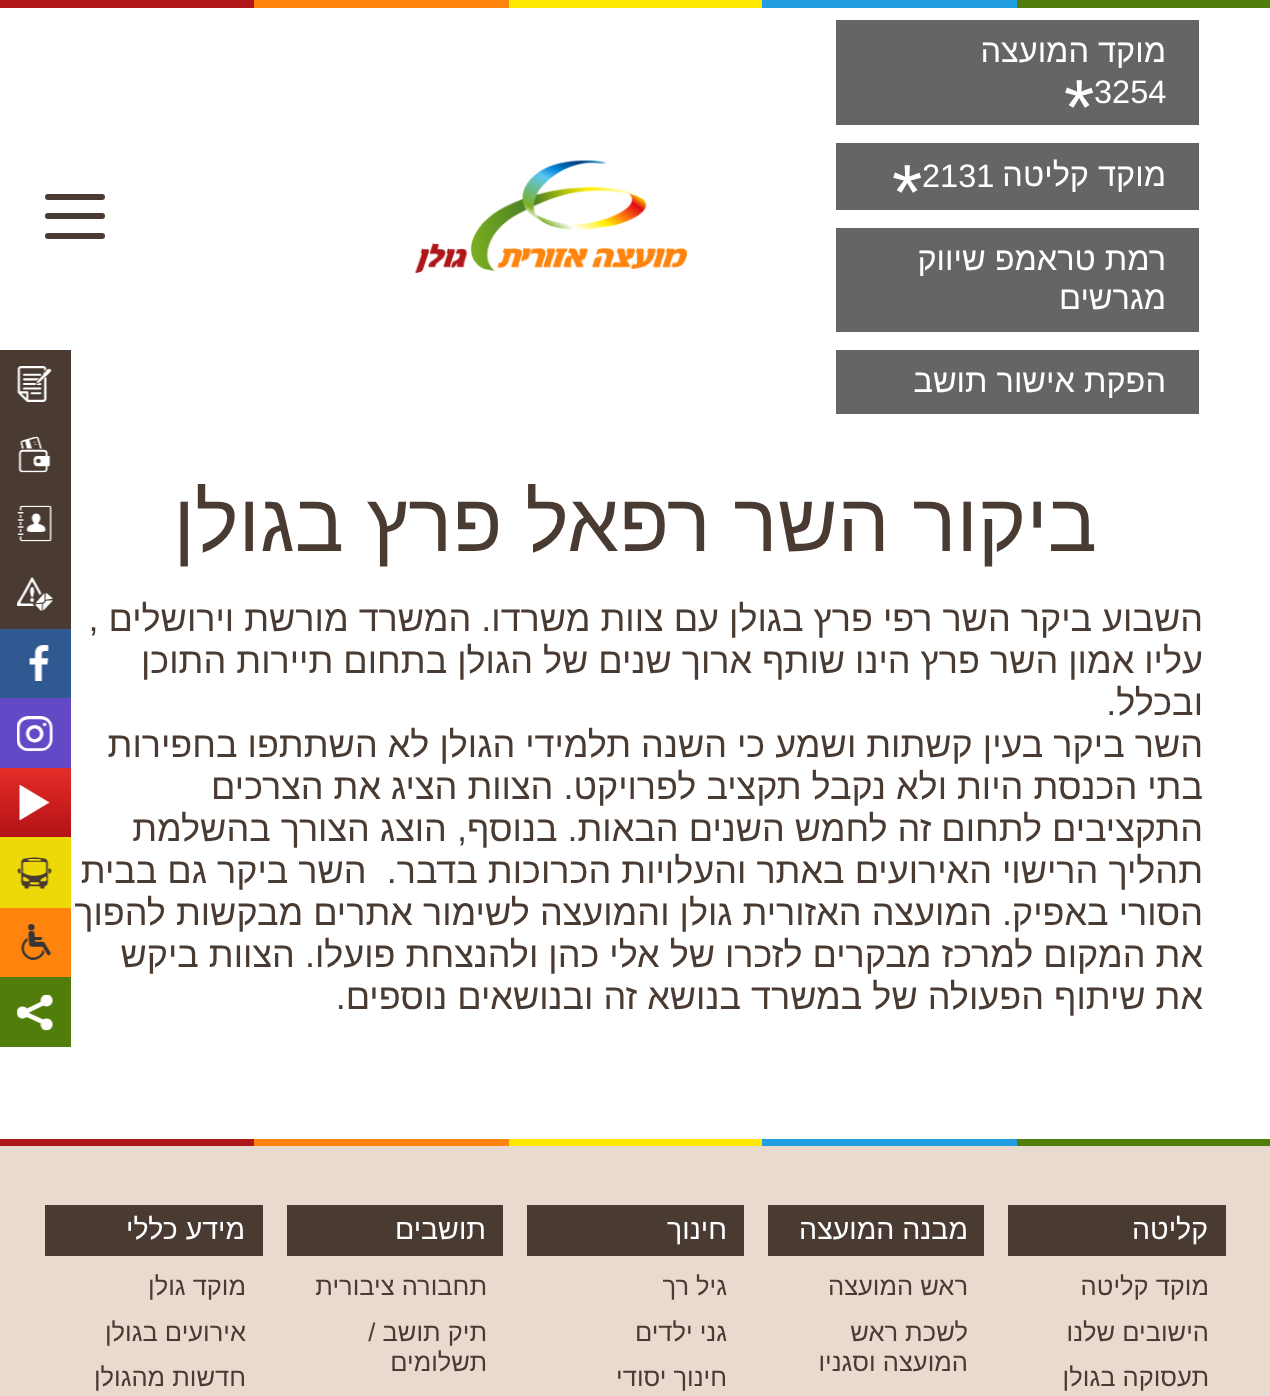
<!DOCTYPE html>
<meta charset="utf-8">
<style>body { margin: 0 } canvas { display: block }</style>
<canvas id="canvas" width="1270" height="1396"></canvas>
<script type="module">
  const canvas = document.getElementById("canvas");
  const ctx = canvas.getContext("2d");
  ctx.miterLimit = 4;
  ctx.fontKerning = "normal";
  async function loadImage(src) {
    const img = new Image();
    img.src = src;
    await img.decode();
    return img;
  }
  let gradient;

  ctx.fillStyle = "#ffffff";
  ctx.fillRect(0, 0, 1270, 1396);
  ctx.fillStyle = "#ae1619";
  ctx.fillRect(0, 0, 254, 8);
  ctx.fillStyle = "#ff840d";
  ctx.fillRect(254, 0, 255, 8);
  ctx.fillStyle = "#ffe900";
  ctx.fillRect(509, 0, 253, 8);
  ctx.fillStyle = "#229de0";
  ctx.fillRect(762, 0, 255, 8);
  ctx.fillStyle = "#517e0b";
  ctx.fillRect(1017, 0, 253, 8);
  ctx.fillStyle = "#656565";
  ctx.fillRect(836, 20, 363, 105);
  ctx.direction = "rtl";
  ctx.font = "32.5px Liberation Sans";
  ctx.fillStyle = "#ffffff";
  ctx.fillText("מוקד המועצה", 1166, 62);
  ctx.direction = "ltr";
  ctx.fillText("3254", 1094, 103);
  ctx.font = "78px Liberation Sans";
  ctx.fillText("*", 1064, 134);
  ctx.fillStyle = "#656565";
  ctx.fillRect(836, 143, 363, 67);
  ctx.direction = "rtl";
  ctx.font = "32.5px Liberation Sans";
  ctx.fillStyle = "#ffffff";
  ctx.fillText("מוקד קליטה", 1166, 186);
  ctx.direction = "ltr";
  ctx.fillText("2131", 922, 187);
  ctx.font = "78px Liberation Sans";
  ctx.fillText("*", 892, 219);
  ctx.fillStyle = "#656565";
  ctx.fillRect(836, 228, 363, 104);
  ctx.direction = "rtl";
  ctx.font = "32.5px Liberation Sans";
  ctx.fillStyle = "#ffffff";
  ctx.fillText("רמת טראמפ שיווק", 1166, 270);
  ctx.fillText("מגרשים", 1166, 309);
  ctx.fillStyle = "#656565";
  ctx.fillRect(836, 350, 363, 64);
  ctx.fillStyle = "#ffffff";
  ctx.fillText("הפקת אישור תושב", 1166, 392);
  ctx.drawImage(await loadImage("img1.png"), 415, 160, 272, 113);
  ctx.fillStyle = "#493b32";
  ctx.beginPath();
  ctx.roundRect(45, 194, 60, 6, 3);
  ctx.fill();
  ctx.beginPath();
  ctx.roundRect(45, 213, 60, 6, 3);
  ctx.fill();
  ctx.beginPath();
  ctx.roundRect(45, 233, 60, 6, 3);
  ctx.fill();
  ctx.font = "82.3px Liberation Sans";
  ctx.fillText("ביקור השר רפאל פרץ בגולן", 1097, 551);
  ctx.font = "36px Liberation Sans";
  ctx.fillText("השבוע ביקר השר רפי פרץ בגולן עם צוות משרדו. המשרד מורשת וירושלים ,", 1203, 631);
  ctx.fillText("עליו אמון השר פרץ הינו שותף ארוך שנים של הגולן בתחום תיירות התוכן", 1203, 673);
  ctx.fillText("ובכלל.", 1203, 715);
  ctx.fillText("השר ביקר בעין קשתות ושמע כי השנה תלמידי הגולן לא השתתפו בחפירות", 1203, 757);
  ctx.fillText("בתי הכנסת היות ולא נקבל תקציב לפרויקט. הצוות הציג את הצרכים", 1203, 799);
  ctx.fillText("התקציבים לתחום זה לחמש השנים הבאות. בנוסף, הוצג הצורך בהשלמת", 1203, 841);
  ctx.fillText("תהליך הרישוי האירועים באתר והעלויות הכרוכות בדבר.  השר ביקר גם בבית", 1203, 883);
  ctx.fillText("הסורי באפיק. המועצה האזורית גולן והמועצה לשימור אתרים מבקשות להפוך", 1203, 925);
  ctx.fillText("את המקום למרכז מבקרים לזכרו של אלי כהן ולהנצחת פועלו. הצוות ביקש", 1203, 967);
  ctx.fillText("את שיתוף הפעולה של במשרד בנושא זה ובנושאים נוספים.", 1203, 1009);
  ctx.fillRect(0, 350, 71, 279);
  ctx.drawImage(await loadImage("img2.png"), 17, 366, 35, 36);
  ctx.drawImage(await loadImage("img3.png"), 18, 436, 33, 37);
  ctx.drawImage(await loadImage("img4.png"), 17, 505, 35, 37);
  ctx.drawImage(await loadImage("img5.png"), 17, 577, 36, 34);
  ctx.fillStyle = "#305891";
  ctx.fillRect(0, 629, 71, 69);
  ctx.drawImage(await loadImage("img6.png"), 29, 645, 20, 36);
  ctx.fillStyle = "#6449c6";
  ctx.fillRect(0, 698, 71, 70);
  ctx.drawImage(await loadImage("img7.png"), 17, 716, 36, 35);
  gradient = ctx.createLinearGradient(35, 768, 35, 837);
  gradient.addColorStop(0, "#e52d27");
  gradient.addColorStop(1, "#b31217");
  ctx.fillStyle = gradient;
  ctx.fillRect(0, 768, 71, 69);
  ctx.drawImage(await loadImage("img8.png"), 19, 784, 31, 37);
  ctx.fillStyle = "#ecd907";
  ctx.fillRect(0, 837, 71, 71);
  ctx.drawImage(await loadImage("img9.png"), 17, 857, 35, 32);
  ctx.fillStyle = "#ff840d";
  ctx.fillRect(0, 908, 71, 69);
  ctx.drawImage(await loadImage("img10.png"), 21, 924, 31, 36);
  ctx.fillStyle = "#517e0b";
  ctx.fillRect(0, 977, 71, 70);
  ctx.drawImage(await loadImage("img11.png"), 17, 994, 36, 37);
  ctx.fillStyle = "#e9dacf";
  ctx.fillRect(0, 1146, 1270, 250);
  ctx.fillStyle = "#ae1619";
  ctx.fillRect(0, 1139, 254, 7);
  ctx.fillStyle = "#ff840d";
  ctx.fillRect(254, 1139, 255, 7);
  ctx.fillStyle = "#ffe900";
  ctx.fillRect(509, 1139, 253, 7);
  ctx.fillStyle = "#229de0";
  ctx.fillRect(762, 1139, 255, 7);
  ctx.fillStyle = "#517e0b";
  ctx.fillRect(1017, 1139, 253, 7);
  ctx.fillStyle = "#493b32";
  ctx.fillRect(1008, 1205, 218, 51);
  ctx.font = "28.5px Liberation Sans";
  ctx.fillStyle = "#ffffff";
  ctx.fillText("קליטה", 1208, 1239);
  ctx.font = "25.5px Liberation Sans";
  ctx.fillStyle = "#493b32";
  ctx.fillText("מוקד קליטה", 1209, 1295);
  ctx.fillText("הישובים שלנו", 1209, 1341);
  ctx.fillText("תעסוקה בגולן", 1209, 1386);
  ctx.fillRect(768, 1205, 216, 51);
  ctx.font = "28.5px Liberation Sans";
  ctx.fillStyle = "#ffffff";
  ctx.fillText("מבנה המועצה", 968, 1239);
  ctx.font = "25.5px Liberation Sans";
  ctx.fillStyle = "#493b32";
  ctx.fillText("ראש המועצה", 968, 1295);
  ctx.fillText("לשכת ראש", 968, 1341);
  ctx.fillText("המועצה וסגניו", 968, 1371);
  ctx.fillRect(527, 1205, 217, 51);
  ctx.font = "28.5px Liberation Sans";
  ctx.fillStyle = "#ffffff";
  ctx.fillText("חינוך", 727, 1239);
  ctx.font = "25.5px Liberation Sans";
  ctx.fillStyle = "#493b32";
  ctx.fillText("גיל רך", 727, 1295);
  ctx.fillText("גני ילדים", 727, 1341);
  ctx.fillText("חינוך יסודי", 727, 1386);
  ctx.fillRect(287, 1205, 216, 51);
  ctx.font = "28.5px Liberation Sans";
  ctx.fillStyle = "#ffffff";
  ctx.fillText("תושבים", 486, 1239);
  ctx.font = "25.5px Liberation Sans";
  ctx.fillStyle = "#493b32";
  ctx.fillText("תחבורה ציבורית", 487, 1295);
  ctx.fillText("תיק תושב /", 487, 1341);
  ctx.fillText("תשלומים", 487, 1371);
  ctx.fillRect(45, 1205, 218, 51);
  ctx.font = "28.5px Liberation Sans";
  ctx.fillStyle = "#ffffff";
  ctx.fillText("מידע כללי", 245, 1239);
  ctx.font = "25.5px Liberation Sans";
  ctx.fillStyle = "#493b32";
  ctx.fillText("מוקד גולן", 246, 1295);
  ctx.fillText("אירועים בגולן", 246, 1341);
  ctx.fillText("חדשות מהגולן", 246, 1386);
</script>
